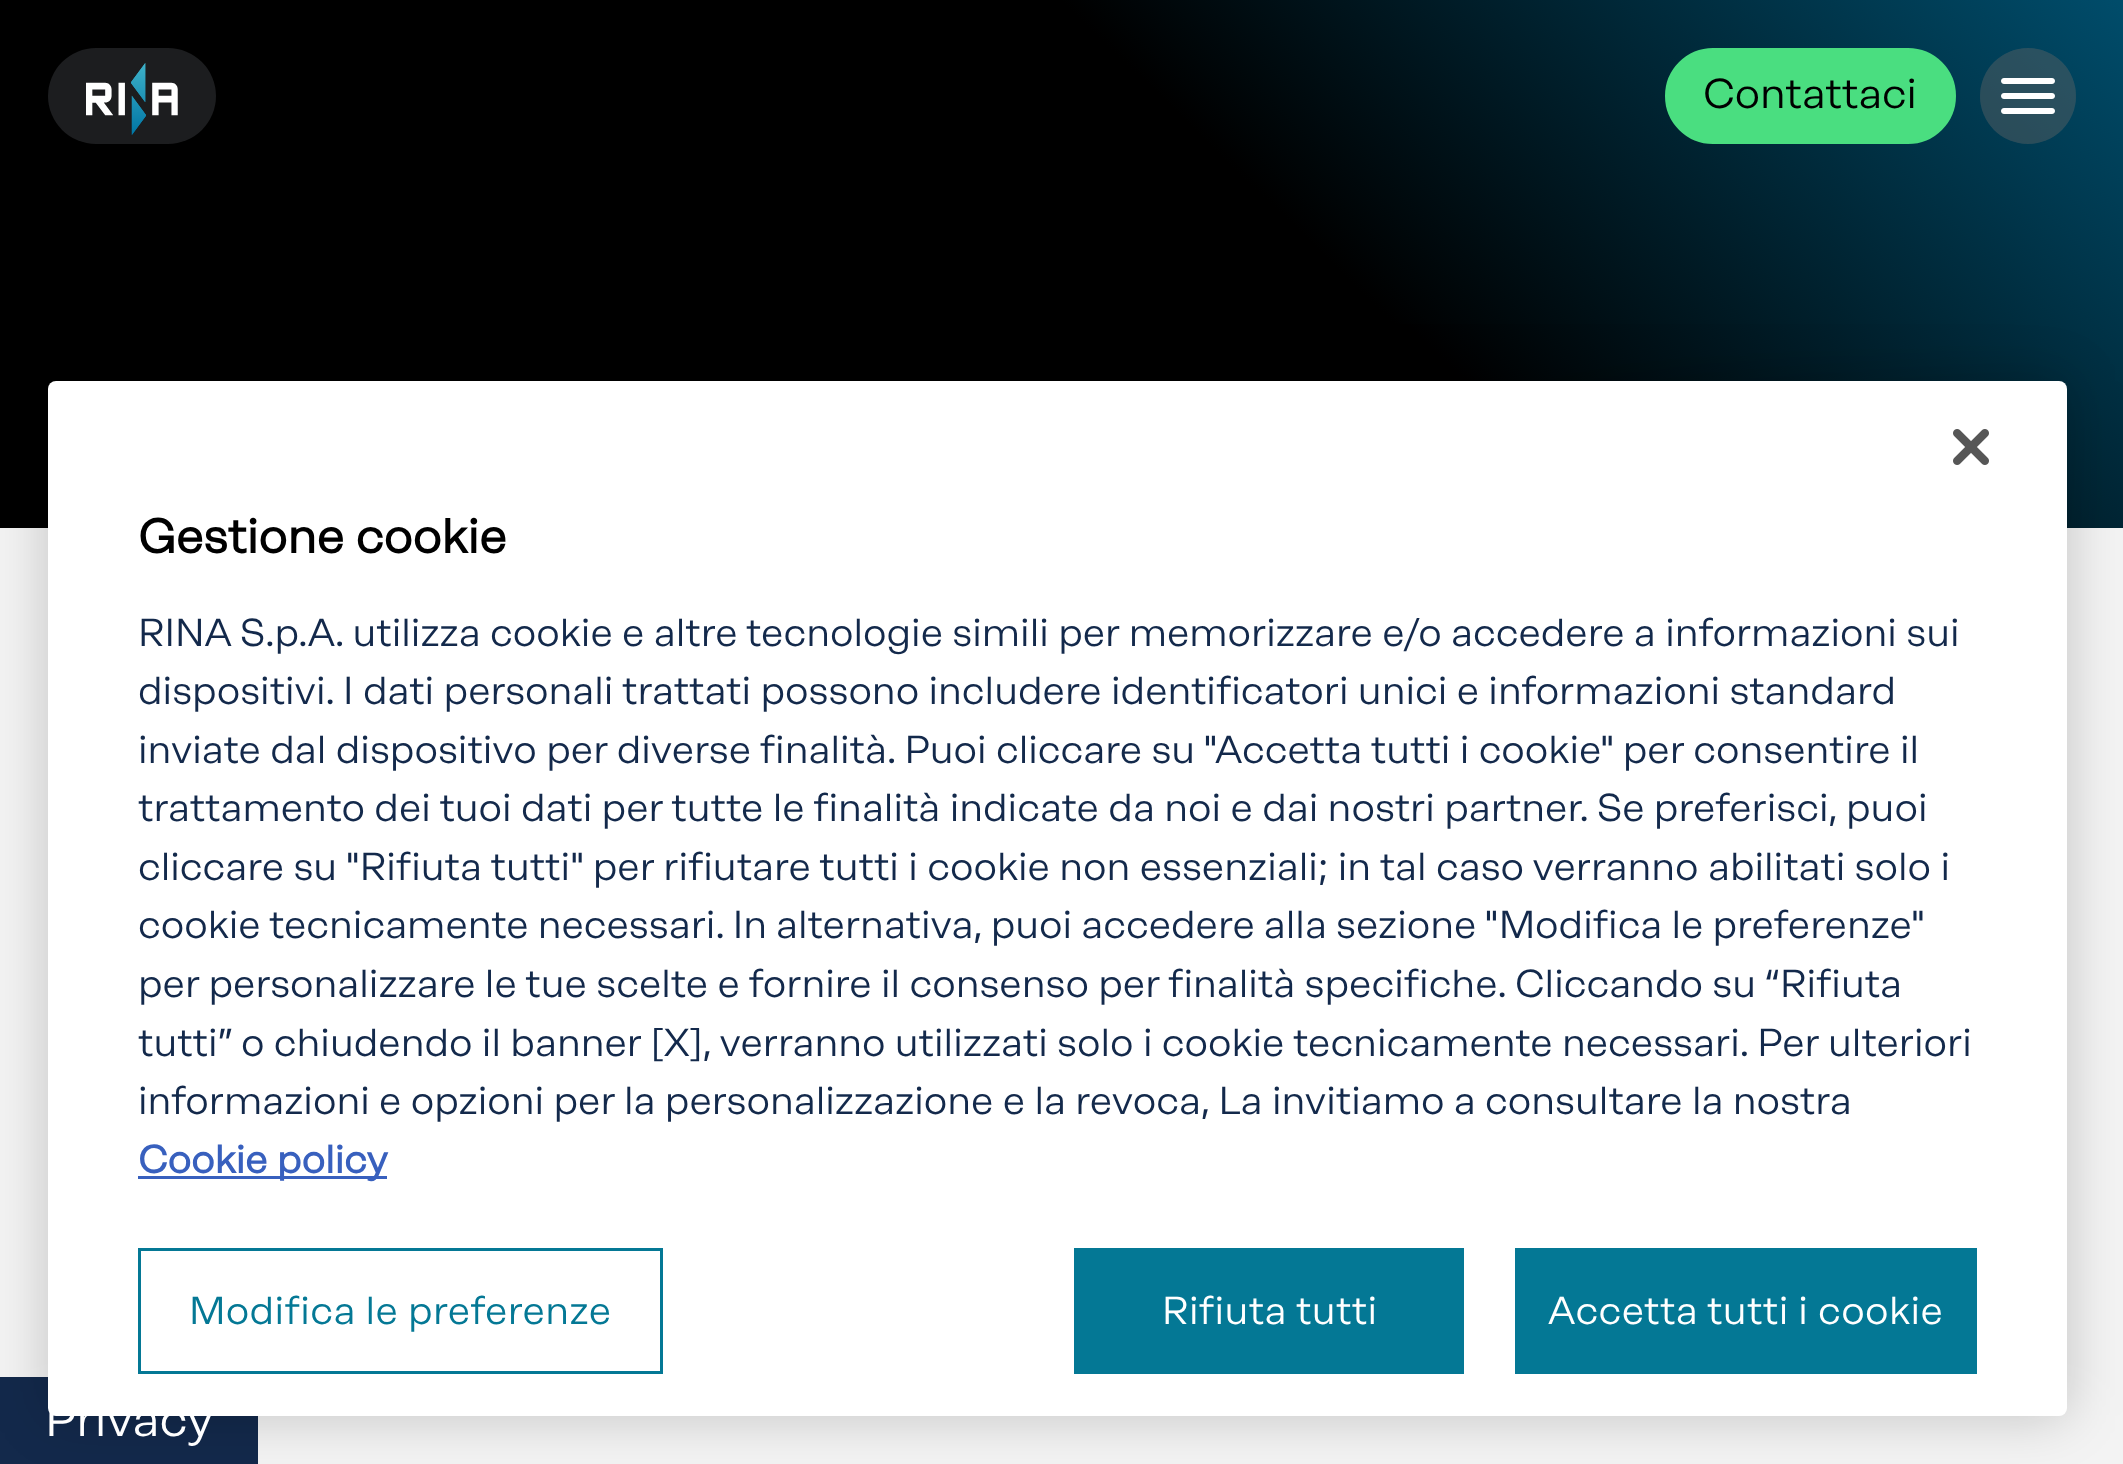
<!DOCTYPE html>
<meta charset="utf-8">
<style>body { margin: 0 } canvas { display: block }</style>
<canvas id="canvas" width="2123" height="1464"></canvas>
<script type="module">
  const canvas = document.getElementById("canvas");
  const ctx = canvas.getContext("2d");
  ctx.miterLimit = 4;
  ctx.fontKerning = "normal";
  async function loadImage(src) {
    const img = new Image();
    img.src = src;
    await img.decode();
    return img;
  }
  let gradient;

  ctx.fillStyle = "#ffffff";
  ctx.fillRect(0, 0, 2123, 1464);
  gradient = ctx.createLinearGradient(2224, -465, 181, 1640);
  gradient.addColorStop(0, "#0076a5");
  gradient.addColorStop(0.39, "#000000");
  ctx.fillStyle = gradient;
  ctx.fillRect(0, 0, 2123, 528);
  ctx.fillStyle = "#1c1d1f";
  ctx.beginPath();
  ctx.roundRect(48, 48, 168, 96, 48);
  ctx.fill();
  ctx.drawImage(await loadImage("img1.png"), 86, 63, 92, 72);
  ctx.fillStyle = "#4ade80";
  ctx.beginPath();
  ctx.roundRect(1666.5, 49.5, 288, 93, 46.5);
  ctx.fill();
  ctx.strokeStyle = "#4ade80";
  ctx.lineWidth = 3;
  ctx.stroke();
  ctx.font = "42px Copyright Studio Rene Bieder";
  ctx.fillStyle = "#000000";
  ctx.fillText("Contattaci", 1703, 108);
  ctx.fillStyle = "rgba(255, 255, 255, 0.16)";
  ctx.beginPath();
  ctx.arc(2028, 96, 48, 0, Math.PI * 2);
  ctx.fill();
  ctx.fillStyle = "rgba(48, 49, 50, 0.32)";
  ctx.beginPath();
  ctx.arc(2028, 96, 48, 0, Math.PI * 2);
  ctx.fill();
  ctx.drawImage(await loadImage("img2.png"), 2001, 78, 54, 36);
  ctx.fillStyle = "#f3f3f3";
  ctx.fillRect(0, 528, 2123, 936);
  ctx.fillStyle = "#13294b";
  ctx.fillRect(0, 1377, 258, 87);
  ctx.fillStyle = "rgba(0, 0, 0, 0.2)";
  ctx.filter = "blur(27px)";
  ctx.beginPath();
  ctx.roundRect(48, 381, 2019, 1035, 8);
  ctx.fill();
  ctx.filter = "none";
  ctx.fillStyle = "#ffffff";
  ctx.beginPath();
  ctx.roundRect(48, 381, 2019, 1035, 8);
  ctx.fill();
  ctx.drawImage(await loadImage("img3.png"), 1953, 429, 36, 36);
  ctx.font = "bold 48px Copyright Studio Rene Bieder";
  ctx.fillStyle = "#000000";
  ctx.fillText("Gestione cookie", 138, 553);
  ctx.font = "39px Copyright Studio Rene Bieder";
  ctx.fillStyle = "#13294b";
  ctx.fillText("RINA S.p.A. utilizza cookie e altre tecnologie simili per memorizzare e/o accedere a informazioni sui", 138, 646);
  ctx.fillText("dispositivi. I dati personali trattati possono includere identificatori unici e informazioni standard", 138, 704);
  ctx.fillText("inviate dal dispositivo per diverse finalità. Puoi cliccare su \"Accetta tutti i cookie\" per consentire il", 138, 763);
  ctx.fillText("trattamento dei tuoi dati per tutte le finalità indicate da noi e dai nostri partner. Se preferisci, puoi", 138, 821);
  ctx.fillText("cliccare su \"Rifiuta tutti\" per rifiutare tutti i cookie non essenziali; in tal caso verranno abilitati solo i", 138, 880);
  ctx.wordSpacing = "-0.25px";
  ctx.fillText("cookie tecnicamente necessari. In alternativa, puoi accedere alla sezione \"Modifica le preferenze\"", 138, 938);
  ctx.wordSpacing = "0px";
  ctx.fillText("per personalizzare le tue scelte e fornire il consenso per finalità specifiche. Cliccando su “Rifiuta", 138, 997);
  ctx.fillText("tutti” o chiudendo il banner [X], verranno utilizzati solo i cookie tecnicamente necessari. Per ulteriori", 138, 1056);
  ctx.fillText("informazioni e opzioni per la personalizzazione e la revoca, La invitiamo a consultare la nostra", 138, 1114);
  ctx.fillStyle = "#3860be";
  ctx.fillRect(138, 1176, 249, 3);
  ctx.font = "bold 39px Copyright Studio Rene Bieder";
  ctx.fillText("Cookie policy", 138, 1173);
  ctx.strokeStyle = "#047895";
  ctx.strokeRect(139.5, 1249.5, 522, 123);
  ctx.letterSpacing = "0.4px";
  ctx.font = "39px Copyright Studio Rene Bieder";
  ctx.fillStyle = "#047895";
  ctx.fillText("Modifica le preferenze", 189, 1324);
  ctx.fillRect(1074, 1248, 390, 126);
  ctx.fillStyle = "#ffffff";
  ctx.fillText("Rifiuta tutti", 1162, 1324);
  ctx.fillStyle = "#047895";
  ctx.fillRect(1515, 1248, 462, 126);
  ctx.fillStyle = "#ffffff";
  ctx.fillText("Accetta tutti i cookie", 1548, 1324);
  ctx.letterSpacing = "0px";
  ctx.font = "48px Copyright Studio Rene Bieder";
  ctx.fillText("Privacy", 45, 1436);
</script>
